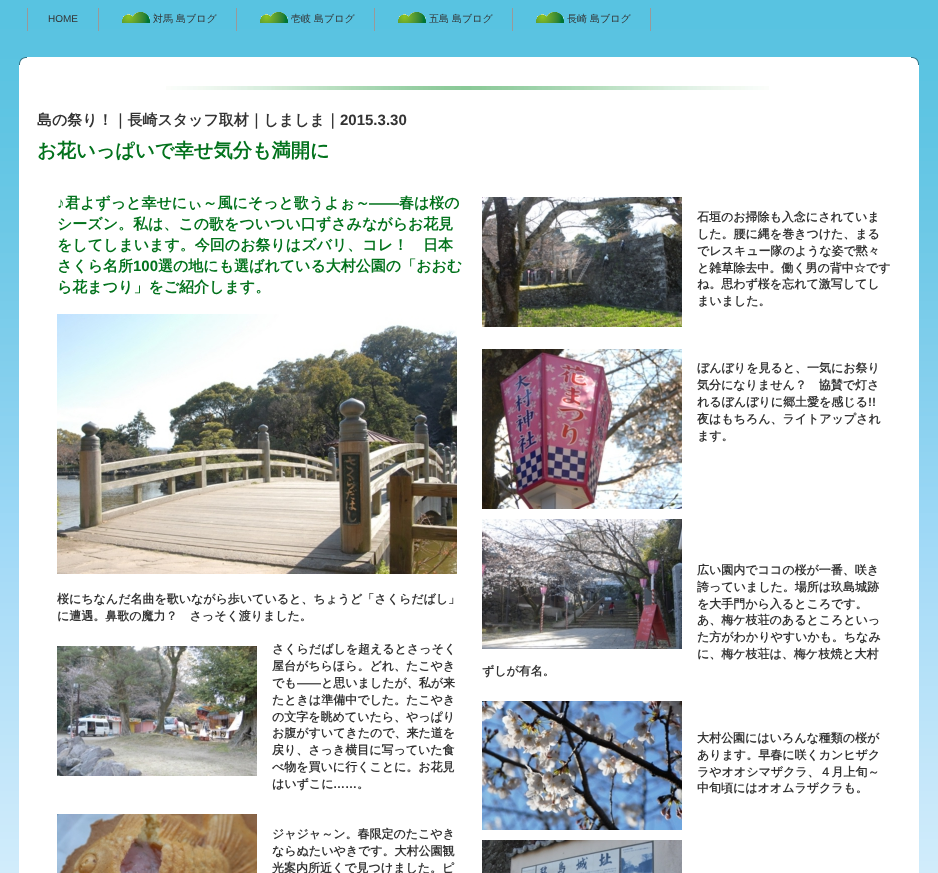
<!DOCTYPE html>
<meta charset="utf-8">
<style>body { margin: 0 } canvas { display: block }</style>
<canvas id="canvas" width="938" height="873"></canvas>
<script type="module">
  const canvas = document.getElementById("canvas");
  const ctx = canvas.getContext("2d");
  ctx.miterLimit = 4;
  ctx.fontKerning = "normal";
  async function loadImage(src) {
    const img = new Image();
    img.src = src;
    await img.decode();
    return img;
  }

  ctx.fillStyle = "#ffffff";
  ctx.fillRect(0, 0, 938, 873);
  ctx.drawImage(await loadImage("img1.png"), 0, 0, 938, 873);
  ctx.fillStyle = "#999999";
  ctx.fillRect(98, 8, 1, 23);
  ctx.fillRect(27, 8, 1, 23);
  ctx.font = "10px Liberation Sans";
  ctx.fillStyle = "#333333";
  ctx.fillText("HOME", 48, 22);
  ctx.fillStyle = "#999999";
  ctx.fillRect(236, 8, 1, 23);
  ctx.drawImage(await loadImage("img2.png"), 122, 12, 28, 11);
  ctx.font = "500 10px WenQuanYi Zen Hei";
  ctx.fillStyle = "#333333";
  ctx.fillText("対馬 島ブログ", 153, 22);
  ctx.fillStyle = "#999999";
  ctx.fillRect(374, 8, 1, 23);
  ctx.drawImage(await loadImage("img2.png"), 260, 12, 28, 11);
  ctx.fillStyle = "#333333";
  ctx.fillText("壱岐 島ブログ", 291, 22);
  ctx.fillStyle = "#999999";
  ctx.fillRect(512, 8, 1, 23);
  ctx.drawImage(await loadImage("img2.png"), 398, 12, 28, 11);
  ctx.fillStyle = "#333333";
  ctx.fillText("五島 島ブログ", 429, 22);
  ctx.fillStyle = "#999999";
  ctx.fillRect(650, 8, 1, 23);
  ctx.drawImage(await loadImage("img2.png"), 536, 12, 28, 11);
  ctx.fillStyle = "#333333";
  ctx.fillText("長崎 島ブログ", 567, 22);
  ctx.drawImage(await loadImage("img3.png"), 19, 57, 8, 8);
  ctx.fillStyle = "#ffffff";
  ctx.fillRect(27, 57, 884, 816);
  ctx.drawImage(await loadImage("img4.png"), 911, 57, 8, 8);
  ctx.fillRect(19, 65, 8, 808);
  ctx.drawImage(await loadImage("img5.png"), 166, 86, 603, 4);
  ctx.font = "bold 15px WenQuanYi Zen Hei";
  ctx.fillStyle = "#333333";
  ctx.fillText("島の祭り！｜長崎スタッフ取材｜しましま｜", 37, 125);
  ctx.font = "bold 15px Liberation Sans";
  ctx.fillText("2015.3.30", 340, 125);
  ctx.font = "bold 19.25px WenQuanYi Zen Hei";
  ctx.fillStyle = "#02721c";
  ctx.fillText("お花いっぱいで幸せ気分も満開に", 37, 157);
  ctx.font = "bold 15px Liberation Sans";
  ctx.fillText("♪", 57, 208);
  ctx.font = "bold 15px WenQuanYi Zen Hei";
  ctx.fillText("君よずっと幸せにぃ～風にそっと歌うよぉ～", 65, 208);
  ctx.font = "bold 15px Liberation Sans";
  ctx.fillText("――", 369, 208);
  ctx.font = "bold 15px WenQuanYi Zen Hei";
  ctx.fillText("春は桜の", 399, 208);
  ctx.fillText("シーズン。私は、この歌をついつい口ずさみながらお花見", 57, 229);
  ctx.fillText("をしてしまいます。今回のお祭りはズバリ、コレ！　日本", 57, 250);
  ctx.fillText("さくら名所", 57, 271);
  ctx.font = "bold 15px Liberation Sans";
  ctx.fillText("100", 133, 271);
  ctx.font = "bold 15px WenQuanYi Zen Hei";
  ctx.fillText("選の地にも選ばれている大村公園の「おおむ", 158, 271);
  ctx.fillText("ら花まつり」をご紹介します。", 57, 292);
  ctx.drawImage(await loadImage("img6.png"), 57, 314, 400, 260);
  ctx.font = "bold 12px WenQuanYi Zen Hei";
  ctx.fillStyle = "#333333";
  ctx.fillText("桜にちなんだ名曲を歌いながら歩いていると、ちょうど「さくらだばし」", 57, 603);
  ctx.fillText("に遭遇。鼻歌の魔力？　さっそく渡りました。", 57, 620);
  ctx.drawImage(await loadImage("img7.png"), 57, 646, 200, 130);
  ctx.fillText("さくらだばしを超えるとさっそく", 272, 653);
  ctx.fillText("屋台がちらほら。どれ、たこやき", 272, 670);
  ctx.fillText("でも", 272, 687);
  ctx.font = "bold 12px Liberation Sans";
  ctx.fillText("――", 297, 687);
  ctx.font = "bold 12px WenQuanYi Zen Hei";
  ctx.fillText("と思いましたが、私が来", 321, 687);
  ctx.fillText("たときは準備中でした。たこやき", 272, 704);
  ctx.fillText("の文字を眺めていたら、やっぱり", 272, 721);
  ctx.fillText("お腹がすいてきたので、来た道を", 272, 737);
  ctx.fillText("戻り、さっき横目に写っていた食", 272, 754);
  ctx.fillText("べ物を買いに行くことに。お花見", 272, 771);
  ctx.fillText("はいずこに", 272, 788);
  ctx.font = "bold 12px Liberation Sans";
  ctx.fillText("……", 333, 788);
  ctx.font = "bold 12px WenQuanYi Zen Hei";
  ctx.fillText("。", 357, 788);
  ctx.drawImage(await loadImage("img8.png"), 57, 814, 200, 59);
  ctx.fillText("ジャジャ～ン。春限定のたこやき", 272, 838);
  ctx.fillText("ならぬたいやきです。大村公園観", 272, 855);
  ctx.fillText("光案内所近くで見つけました。ピ", 272, 872);
  ctx.drawImage(await loadImage("img9.png"), 482, 197, 200, 130);
  ctx.fillText("石垣のお掃除も入念にされていま", 697, 221);
  ctx.fillText("した。腰に縄を巻きつけた、まる", 697, 238);
  ctx.fillText("でレスキュー隊のような姿で黙々", 697, 255);
  ctx.fillText("と雑草除去中。働く男の背中☆です", 697, 272);
  ctx.fillText("ね。思わず桜を忘れて激写してし", 697, 288);
  ctx.fillText("まいました。", 697, 305);
  ctx.drawImage(await loadImage("img10.png"), 482, 349, 200, 160);
  ctx.fillText("ぼんぼりを見ると、一気にお祭り", 697, 372);
  ctx.fillText("気分になりません？　協賛で灯さ", 697, 389);
  ctx.fillText("れるぼんぼりに郷土愛を感じる", 697, 406);
  ctx.font = "bold 12px Liberation Sans";
  ctx.fillText("!!", 868, 406);
  ctx.font = "bold 12px WenQuanYi Zen Hei";
  ctx.fillText("夜はもちろん、ライトアップされ", 697, 423);
  ctx.fillText("ます。", 697, 440);
  ctx.drawImage(await loadImage("img11.png"), 482, 519, 200, 130);
  ctx.fillText("広い園内でココの桜が一番、咲き", 697, 574);
  ctx.fillText("誇っていました。場所は玖島城跡", 697, 591);
  ctx.fillText("を大手門から入るところです。", 697, 608);
  ctx.fillText("あ、梅ケ枝荘のあるところといっ", 697, 624);
  ctx.fillText("た方がわかりやすいかも。ちなみ", 697, 641);
  ctx.fillText("に、梅ケ枝荘は、梅ケ枝焼と大村", 697, 658);
  ctx.fillText("ずしが有名。", 482, 675);
  ctx.drawImage(await loadImage("img12.png"), 482, 701, 200, 129);
  ctx.fillText("大村公園にはいろんな種類の桜が", 697, 742);
  ctx.fillText("あります。早春に咲くカンヒザク", 697, 759);
  ctx.fillText("ラやオオシマザクラ、４月上旬～", 697, 776);
  ctx.fillText("中旬頃にはオオムラザクラも。", 697, 792);
  ctx.drawImage(await loadImage("img13.png"), 482, 840, 200, 33);
  ctx.fillStyle = "#ffffff";
  ctx.fillRect(911, 65, 8, 808);
</script>
